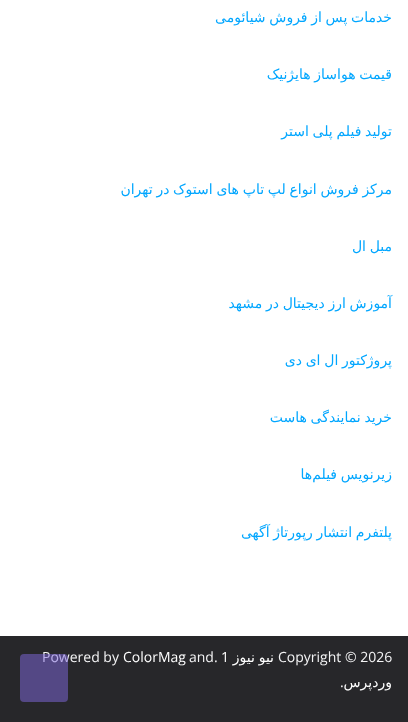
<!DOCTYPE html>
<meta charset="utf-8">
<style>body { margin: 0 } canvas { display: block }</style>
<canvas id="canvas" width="408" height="722"></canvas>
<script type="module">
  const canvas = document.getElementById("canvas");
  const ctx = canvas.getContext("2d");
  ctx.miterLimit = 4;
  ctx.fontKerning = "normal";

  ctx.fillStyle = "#ffffff";
  ctx.fillRect(0, 0, 408, 722);
  ctx.wordSpacing = "-0.75px";
  ctx.direction = "rtl";
  ctx.font = "14px DejaVu Sans";
  ctx.fillStyle = "#00a6ff";
  ctx.fillText("خدمات پس از فروش شیائومی", 392, 22);
  ctx.fillText("قیمت هواساز هایژنیک", 392, 79);
  ctx.fillText("تولید فیلم پلی استر", 392, 136);
  ctx.fillText("مرکز فروش انواع لپ تاپ های استوک در تهران", 392, 194);
  ctx.fillText("مبل ال", 392, 251);
  ctx.fillText("آموزش ارز دیجیتال در مشهد", 392, 308);
  ctx.fillText("پروژکتور ال ای دی", 392, 365);
  ctx.fillText("خرید نمایندگی هاست", 392, 422);
  ctx.fillText("زيرنويس فيلم‌ها", 392, 479);
  ctx.fillText("پلتفرم انتشار رپورتاژ آگهی", 392, 537);
  ctx.fillStyle = "#27272a";
  ctx.fillRect(0, 636, 408, 86);
  ctx.wordSpacing = "0px";
  ctx.direction = "ltr";
  ctx.font = "14px Open Sans";
  ctx.fillStyle = "#f4f4f5";
  ctx.fillText("Copyright © 2026", 278, 662);
  ctx.wordSpacing = "-0.75px";
  ctx.direction = "rtl";
  ctx.font = "14px DejaVu Sans";
  ctx.fillStyle = "#ffffff";
  ctx.fillText("نیو نیوز", 274, 662);
  ctx.wordSpacing = "0px";
  ctx.direction = "ltr";
  ctx.font = "14px Open Sans";
  ctx.fillText("1", 221, 662);
  ctx.fillStyle = "#f4f4f5";
  ctx.fillText(".", 214, 662);
  ctx.fillText("and", 189, 662);
  ctx.fillStyle = "#ffffff";
  ctx.fillText("ColorMag", 123, 662);
  ctx.fillStyle = "#f4f4f5";
  ctx.fillText("Powered by", 42, 662);
  ctx.direction = "rtl";
  ctx.font = "14px DejaVu Sans";
  ctx.fillStyle = "#ffffff";
  ctx.fillText("وردپرس", 392, 687);
  ctx.direction = "ltr";
  ctx.font = "14px Open Sans";
  ctx.fillStyle = "#f4f4f5";
  ctx.fillText(".", 340, 687);
  ctx.fillStyle = "rgba(130, 105, 223, 0.5)";
  ctx.beginPath();
  ctx.roundRect(20, 654, 48, 48, 4);
  ctx.fill();
</script>
